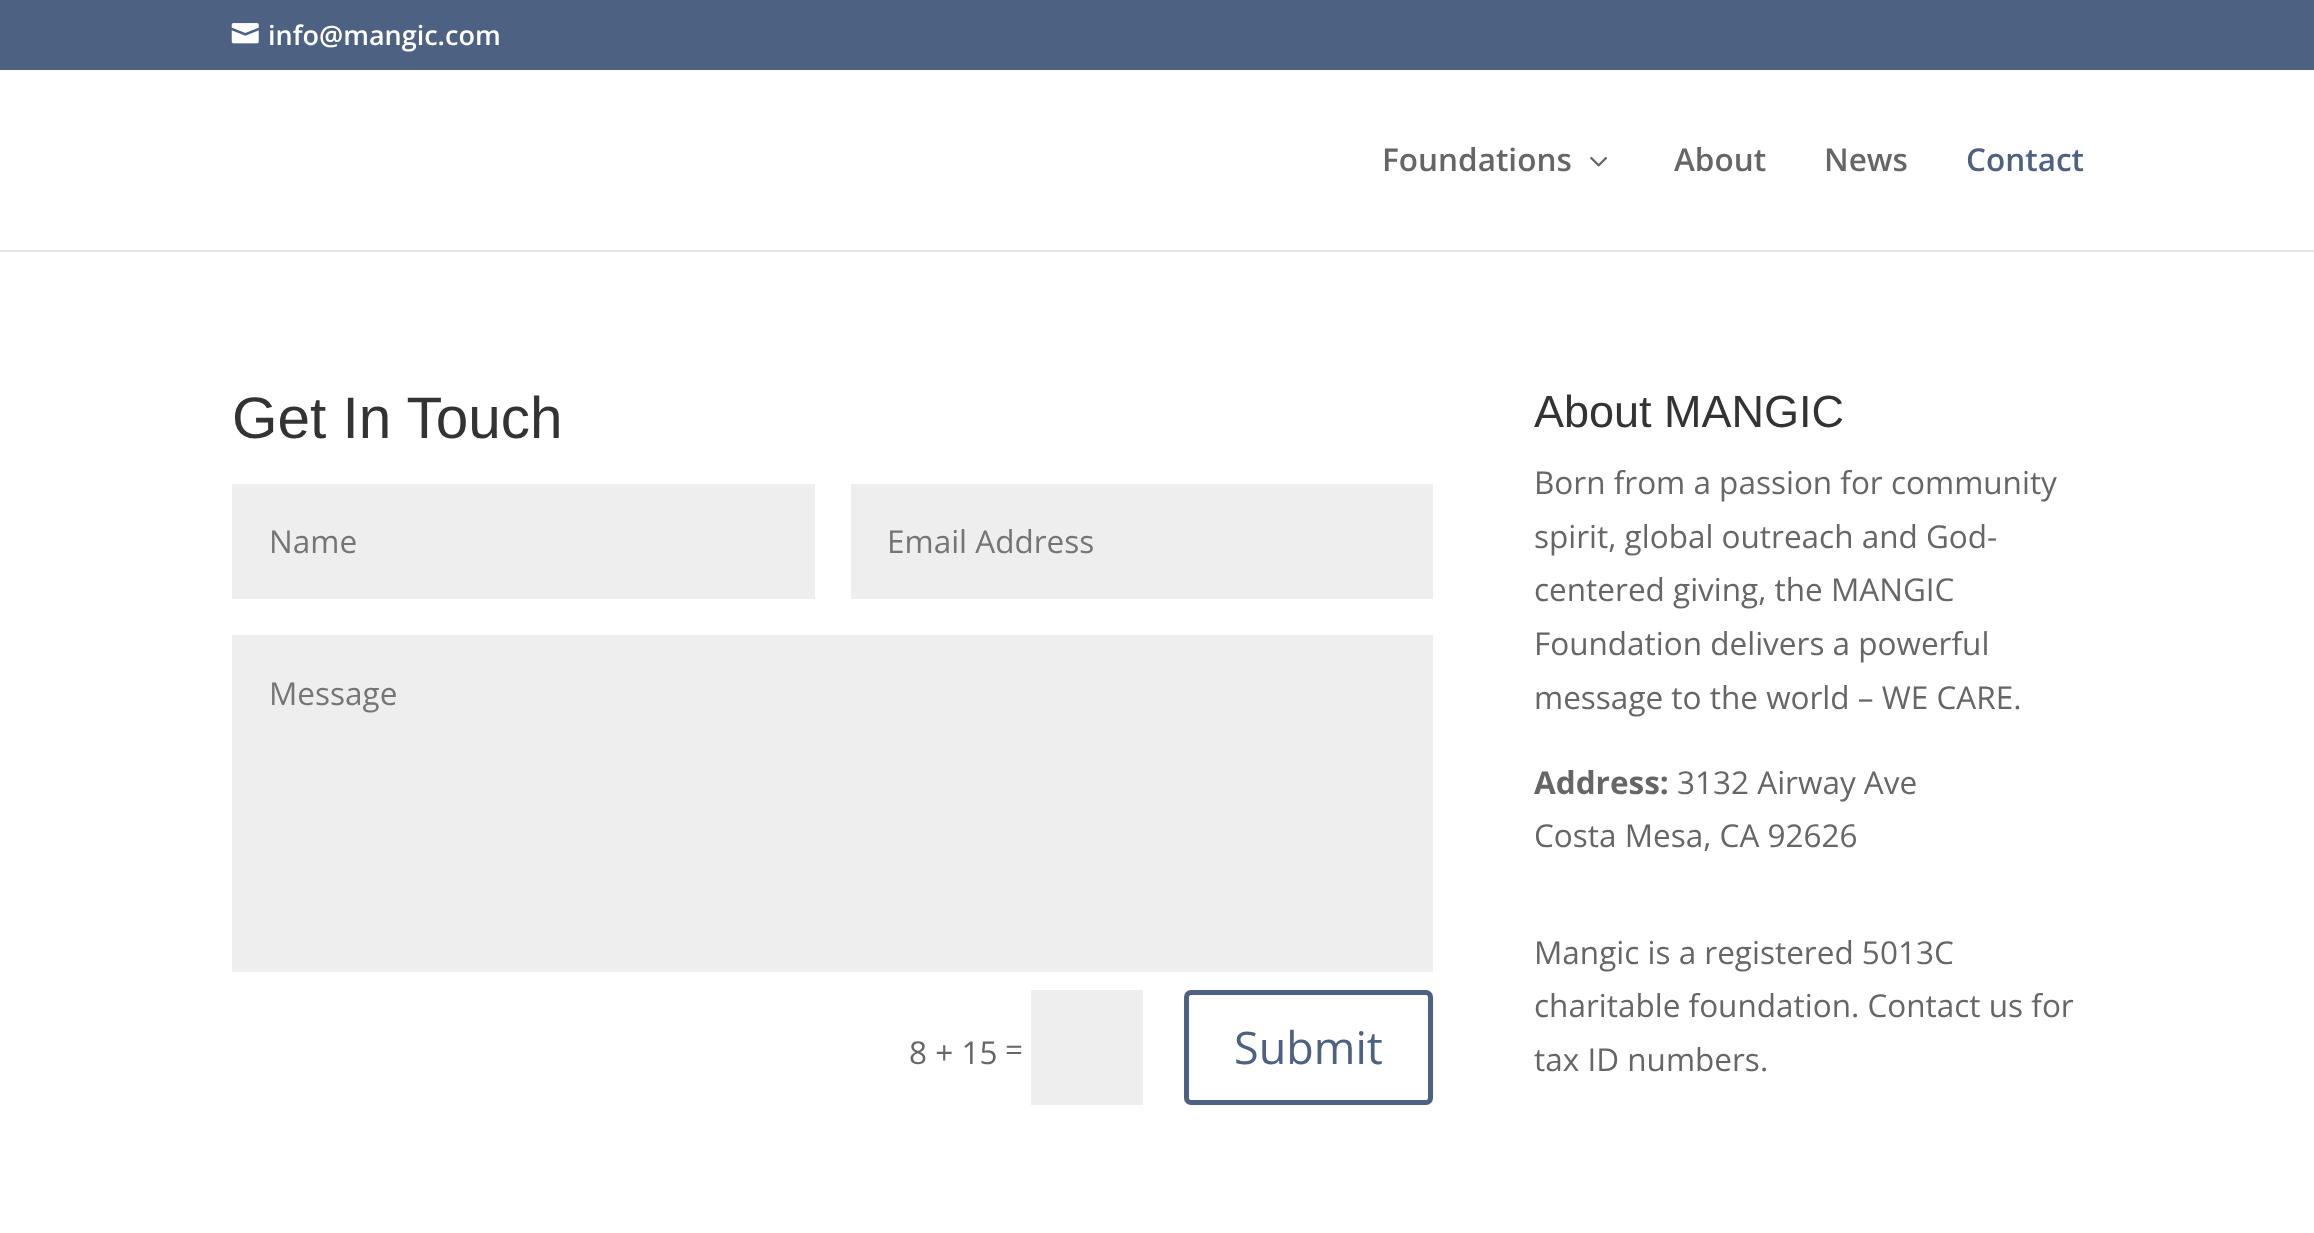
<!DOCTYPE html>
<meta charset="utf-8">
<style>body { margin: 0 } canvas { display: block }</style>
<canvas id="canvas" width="2314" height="1233"></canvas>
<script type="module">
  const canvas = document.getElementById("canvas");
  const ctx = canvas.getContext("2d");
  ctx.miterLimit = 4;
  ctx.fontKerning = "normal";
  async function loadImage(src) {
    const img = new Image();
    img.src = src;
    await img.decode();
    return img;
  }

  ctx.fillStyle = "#ffffff";
  ctx.fillRect(0, 0, 2314, 1233);
  ctx.fillStyle = "#4d6182";
  ctx.fillRect(0, 0, 2314, 70);
  ctx.drawImage(await loadImage("img1.png"), 231, 23, 28, 21);
  ctx.font = "600 27px Open Sans";
  ctx.fillStyle = "#ffffff";
  ctx.fillText("info@mangic.com", 268, 45);
  ctx.fillStyle = "#e6e6e6";
  ctx.fillRect(0, 250, 2314, 2);
  ctx.font = "600 31.5px Open Sans";
  ctx.fillStyle = "#666666";
  ctx.fillText("Foundations", 1382, 171);
  ctx.drawImage(await loadImage("img2.png"), 1590, 157, 17, 10);
  ctx.fillText("About", 1674, 171);
  ctx.fillText("News", 1824, 171);
  ctx.fillStyle = "#4d6182";
  ctx.fillText("Contact", 1966, 171);
  ctx.font = "58.5px Liberation Sans";
  ctx.fillStyle = "#333333";
  ctx.fillText("Get In Touch", 232, 438);
  ctx.fillStyle = "#eeeeee";
  ctx.fillRect(232, 484, 583, 115);
  ctx.font = "31.5px Open Sans";
  ctx.fillStyle = "#757575";
  ctx.fillText("Name", 269, 553);
  ctx.fillStyle = "#eeeeee";
  ctx.fillRect(851, 484, 582, 115);
  ctx.fillStyle = "#757575";
  ctx.fillText("Email Address", 887, 553);
  ctx.fillStyle = "#eeeeee";
  ctx.fillRect(232, 635, 1201, 337);
  ctx.fillStyle = "#757575";
  ctx.fillText("Message", 269, 705);
  ctx.fillStyle = "#666666";
  ctx.fillText("8 + 15", 909, 1064);
  ctx.fillText("=", 1005, 1061);
  ctx.fillStyle = "#eeeeee";
  ctx.fillRect(1031, 990, 112, 115);
  ctx.beginPath();
  ctx.roundRect(1186.5, 992.5, 244, 110, 4.5);
  ctx.strokeStyle = "#4d6182";
  ctx.lineWidth = 5;
  ctx.stroke();
  ctx.font = "45px Open Sans";
  ctx.fillStyle = "#4d6182";
  ctx.fillText("Submit", 1234, 1064);
  ctx.font = "45px Liberation Sans";
  ctx.fillStyle = "#333333";
  ctx.fillText("About MANGIC", 1534, 427);
  ctx.font = "31.5px Open Sans";
  ctx.fillStyle = "#666666";
  ctx.fillText("Born from a passion for community", 1534, 494);
  ctx.fillText("spirit, global outreach and God-", 1534, 548);
  ctx.fillText("centered giving, the MANGIC", 1534, 601);
  ctx.fillText("Foundation delivers a powerful", 1534, 655);
  ctx.fillText("message to the world – WE CARE.", 1534, 709);
  ctx.font = "bold 31.5px Open Sans";
  ctx.fillText("Address:", 1534, 794);
  ctx.font = "31.5px Open Sans";
  ctx.fillText("3132 Airway Ave", 1677, 794);
  ctx.fillText("Costa Mesa, CA 92626", 1534, 847);
  ctx.fillText("Mangic is a registered 5013C", 1534, 964);
  ctx.fillText("charitable foundation. Contact us for", 1534, 1017);
  ctx.fillText("tax ID numbers.", 1534, 1071);
</script>
